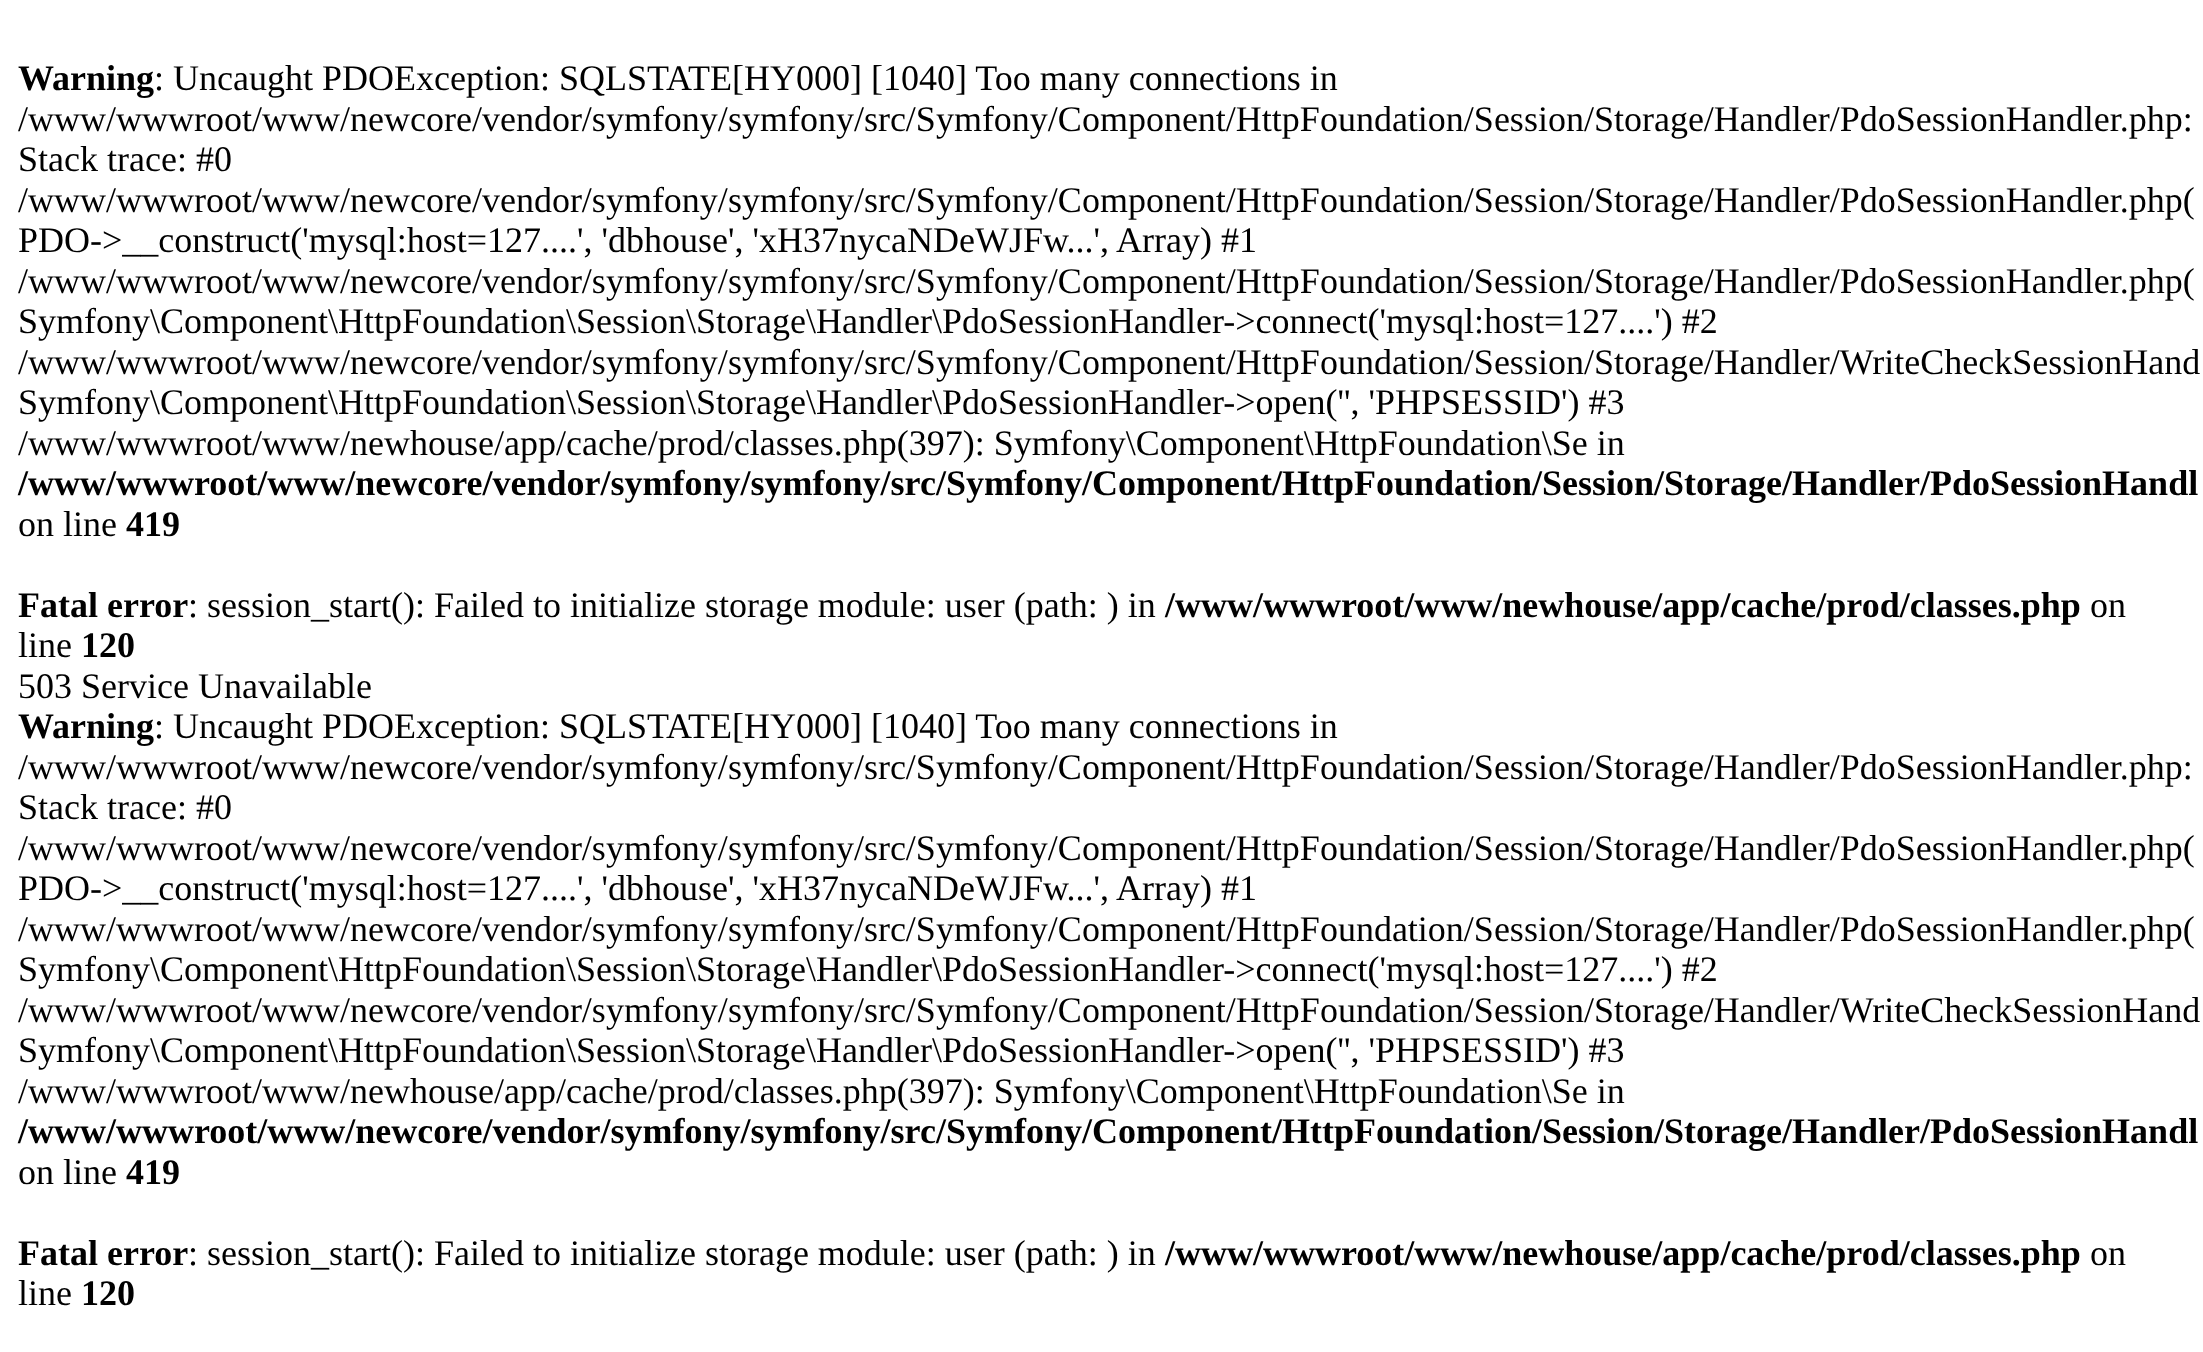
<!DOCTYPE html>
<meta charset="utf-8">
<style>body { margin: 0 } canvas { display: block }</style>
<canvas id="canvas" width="2203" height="1352"></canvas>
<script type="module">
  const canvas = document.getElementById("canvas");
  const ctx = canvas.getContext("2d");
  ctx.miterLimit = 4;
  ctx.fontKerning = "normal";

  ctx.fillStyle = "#ffffff";
  ctx.fillRect(0, 0, 2203, 1352);
  ctx.font = "bold 36px Liberation Serif";
  ctx.fillStyle = "#000000";
  ctx.fillText("Warning", 18, 90);
  ctx.font = "36px Liberation Serif";
  ctx.fillText(": Uncaught PDOException: SQLSTATE[HY000] [1040] Too many connections in", 154, 90);
  ctx.fillText("/www/wwwroot/www/newcore/vendor/symfony/symfony/src/Symfony/Component/HttpFoundation/Session/Storage/Handler/PdoSessionHandler.php:", 18, 131);
  ctx.fillText("Stack trace: #0", 18, 171);
  ctx.fillText("/www/wwwroot/www/newcore/vendor/symfony/symfony/src/Symfony/Component/HttpFoundation/Session/Storage/Handler/PdoSessionHandler.php(", 18, 212);
  ctx.fillText("PDO->__construct('mysql:host=127....', 'dbhouse', 'xH37nycaNDeWJFw...', Array) #1", 18, 252);
  ctx.fillText("/www/wwwroot/www/newcore/vendor/symfony/symfony/src/Symfony/Component/HttpFoundation/Session/Storage/Handler/PdoSessionHandler.php(", 18, 293);
  ctx.fillText("Symfony\\Component\\HttpFoundation\\Session\\Storage\\Handler\\PdoSessionHandler->connect('mysql:host=127....') #2", 18, 333);
  ctx.fillText("/www/wwwroot/www/newcore/vendor/symfony/symfony/src/Symfony/Component/HttpFoundation/Session/Storage/Handler/WriteCheckSessionHand", 18, 374);
  ctx.fillText("Symfony\\Component\\HttpFoundation\\Session\\Storage\\Handler\\PdoSessionHandler->open('', 'PHPSESSID') #3", 18, 414);
  ctx.fillText("/www/wwwroot/www/newhouse/app/cache/prod/classes.php(397): Symfony\\Component\\HttpFoundation\\Se in", 18, 455);
  ctx.font = "bold 36px Liberation Serif";
  ctx.fillText("/www/wwwroot/www/newcore/vendor/symfony/symfony/src/Symfony/Component/HttpFoundation/Session/Storage/Handler/PdoSessionHandl", 18, 495);
  ctx.font = "36px Liberation Serif";
  ctx.fillText("on line", 18, 536);
  ctx.font = "bold 36px Liberation Serif";
  ctx.fillText("419", 126, 536);
  ctx.fillText("Fatal error", 18, 617);
  ctx.font = "36px Liberation Serif";
  ctx.fillText(": session_start(): Failed to initialize storage module: user (path: ) in", 188, 617);
  ctx.font = "bold 36px Liberation Serif";
  ctx.fillText("/www/wwwroot/www/newhouse/app/cache/prod/classes.php", 1165, 617);
  ctx.font = "36px Liberation Serif";
  ctx.fillText("on", 2090, 617);
  ctx.fillText("line", 18, 657);
  ctx.font = "bold 36px Liberation Serif";
  ctx.fillText("120", 81, 657);
  ctx.font = "36px Liberation Serif";
  ctx.fillText("503 Service Unavailable", 18, 698);
  ctx.font = "bold 36px Liberation Serif";
  ctx.fillText("Warning", 18, 738);
  ctx.font = "36px Liberation Serif";
  ctx.fillText(": Uncaught PDOException: SQLSTATE[HY000] [1040] Too many connections in", 154, 738);
  ctx.fillText("/www/wwwroot/www/newcore/vendor/symfony/symfony/src/Symfony/Component/HttpFoundation/Session/Storage/Handler/PdoSessionHandler.php:", 18, 779);
  ctx.fillText("Stack trace: #0", 18, 819);
  ctx.fillText("/www/wwwroot/www/newcore/vendor/symfony/symfony/src/Symfony/Component/HttpFoundation/Session/Storage/Handler/PdoSessionHandler.php(", 18, 860);
  ctx.fillText("PDO->__construct('mysql:host=127....', 'dbhouse', 'xH37nycaNDeWJFw...', Array) #1", 18, 900);
  ctx.fillText("/www/wwwroot/www/newcore/vendor/symfony/symfony/src/Symfony/Component/HttpFoundation/Session/Storage/Handler/PdoSessionHandler.php(", 18, 941);
  ctx.fillText("Symfony\\Component\\HttpFoundation\\Session\\Storage\\Handler\\PdoSessionHandler->connect('mysql:host=127....') #2", 18, 981);
  ctx.fillText("/www/wwwroot/www/newcore/vendor/symfony/symfony/src/Symfony/Component/HttpFoundation/Session/Storage/Handler/WriteCheckSessionHand", 18, 1022);
  ctx.fillText("Symfony\\Component\\HttpFoundation\\Session\\Storage\\Handler\\PdoSessionHandler->open('', 'PHPSESSID') #3", 18, 1062);
  ctx.fillText("/www/wwwroot/www/newhouse/app/cache/prod/classes.php(397): Symfony\\Component\\HttpFoundation\\Se in", 18, 1103);
  ctx.font = "bold 36px Liberation Serif";
  ctx.fillText("/www/wwwroot/www/newcore/vendor/symfony/symfony/src/Symfony/Component/HttpFoundation/Session/Storage/Handler/PdoSessionHandl", 18, 1143);
  ctx.font = "36px Liberation Serif";
  ctx.fillText("on line", 18, 1184);
  ctx.font = "bold 36px Liberation Serif";
  ctx.fillText("419", 126, 1184);
  ctx.fillText("Fatal error", 18, 1265);
  ctx.font = "36px Liberation Serif";
  ctx.fillText(": session_start(): Failed to initialize storage module: user (path: ) in", 188, 1265);
  ctx.font = "bold 36px Liberation Serif";
  ctx.fillText("/www/wwwroot/www/newhouse/app/cache/prod/classes.php", 1165, 1265);
  ctx.font = "36px Liberation Serif";
  ctx.fillText("on", 2090, 1265);
  ctx.fillText("line", 18, 1305);
  ctx.font = "bold 36px Liberation Serif";
  ctx.fillText("120", 81, 1305);
</script>
